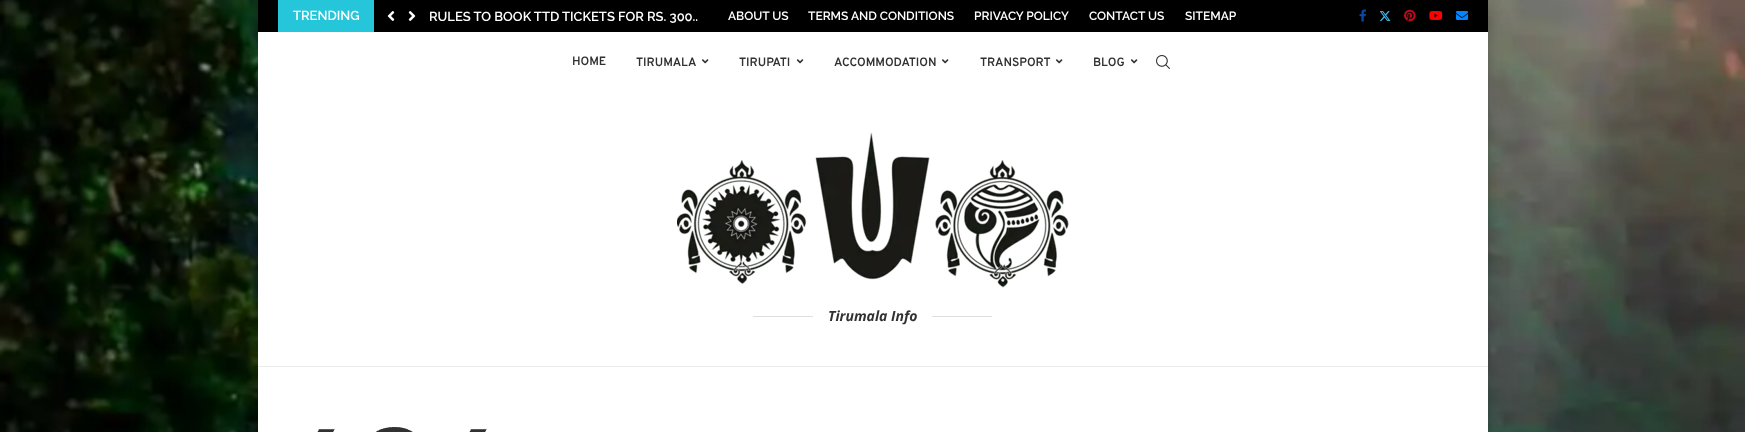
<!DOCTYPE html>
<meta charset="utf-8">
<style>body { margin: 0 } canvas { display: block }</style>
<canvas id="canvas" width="1745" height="432"></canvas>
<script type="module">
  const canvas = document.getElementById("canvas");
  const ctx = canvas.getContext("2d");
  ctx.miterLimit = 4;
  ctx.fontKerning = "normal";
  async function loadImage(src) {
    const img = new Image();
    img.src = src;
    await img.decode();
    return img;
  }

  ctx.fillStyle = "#ffffff";
  ctx.fillRect(0, 0, 1745, 432);
  ctx.drawImage(await loadImage("img1.png"), 0, 0, 1745, 432);
  ctx.fillStyle = "rgba(0, 0, 0, 0.2)";
  ctx.filter = "blur(4px)";
  ctx.beginPath();
  ctx.rect(258, 5, 1230, 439);
  ctx.fill();
  ctx.filter = "none";
  ctx.fillStyle = "#ffffff";
  ctx.fillRect(258, 32, 1230, 400);
  ctx.fillStyle = "#000000";
  ctx.fillRect(258, 0, 1230, 32);
  ctx.fillStyle = "#26c6da";
  ctx.fillRect(278, 0, 96, 32);
  ctx.font = "600 13px Raleway";
  ctx.fillStyle = "#ffffff";
  ctx.fillText("TRENDING", 293, 20);
  ctx.drawImage(await loadImage("img2.png"), 387, 11, 8, 10);
  ctx.drawImage(await loadImage("img3.png"), 408, 11, 8, 10);
  ctx.fillText("RULES TO BOOK TTD TICKETS FOR RS. 300..", 429, 21);
  ctx.font = "600 12px Raleway";
  ctx.fillText("ABOUT US", 728, 20);
  ctx.fillText("TERMS AND CONDITIONS", 808, 20);
  ctx.fillText("PRIVACY POLICY", 974, 20);
  ctx.fillText("CONTACT US", 1089, 20);
  ctx.fillText("SITEMAP", 1185, 20);
  ctx.drawImage(await loadImage("img4.png"), 1359, 9, 7, 13);
  ctx.drawImage(await loadImage("img5.png"), 1379, 11, 12, 10);
  ctx.drawImage(await loadImage("img6.png"), 1404, 9, 12, 13);
  ctx.drawImage(await loadImage("img7.png"), 1429, 11, 14, 9);
  ctx.drawImage(await loadImage("img8.png"), 1456, 11, 12, 9);
  ctx.font = "600 12px Overpass";
  ctx.fillStyle = "#313131";
  ctx.fillText("HOME", 572, 65);
  ctx.fillText("TIRUMALA", 636, 66);
  ctx.drawImage(await loadImage("img9.png"), 701, 59, 8, 5);
  ctx.fillText("TIRUPATI", 739, 66);
  ctx.drawImage(await loadImage("img10.png"), 796, 59, 8, 5);
  ctx.fillText("ACCOMMODATION", 834, 66);
  ctx.drawImage(await loadImage("img11.png"), 942, 59, 7, 5);
  ctx.fillText("TRANSPORT", 980, 66);
  ctx.drawImage(await loadImage("img12.png"), 1055, 59, 8, 5);
  ctx.fillText("BLOG", 1093, 66);
  ctx.drawImage(await loadImage("img13.png"), 1130, 59, 8, 5);
  ctx.drawImage(await loadImage("img14.png"), 1156, 55, 14, 14);
  ctx.fillStyle = "#ececec";
  ctx.fillRect(258, 366, 1230, 1);
  ctx.drawImage(await loadImage("img15.png"), 677, 132, 392, 156);
  ctx.fillStyle = "#dedede";
  ctx.fillRect(753, 316, 60, 1);
  ctx.font = "italic bold 14px Open Sans";
  ctx.fillStyle = "#313131";
  ctx.fillText("Tirumala Info", 828, 321);
  ctx.fillStyle = "#dedede";
  ctx.fillRect(932, 316, 60, 1);
  ctx.drawImage(await loadImage("img16.png"), 317, 427, 170, 5);
</script>
